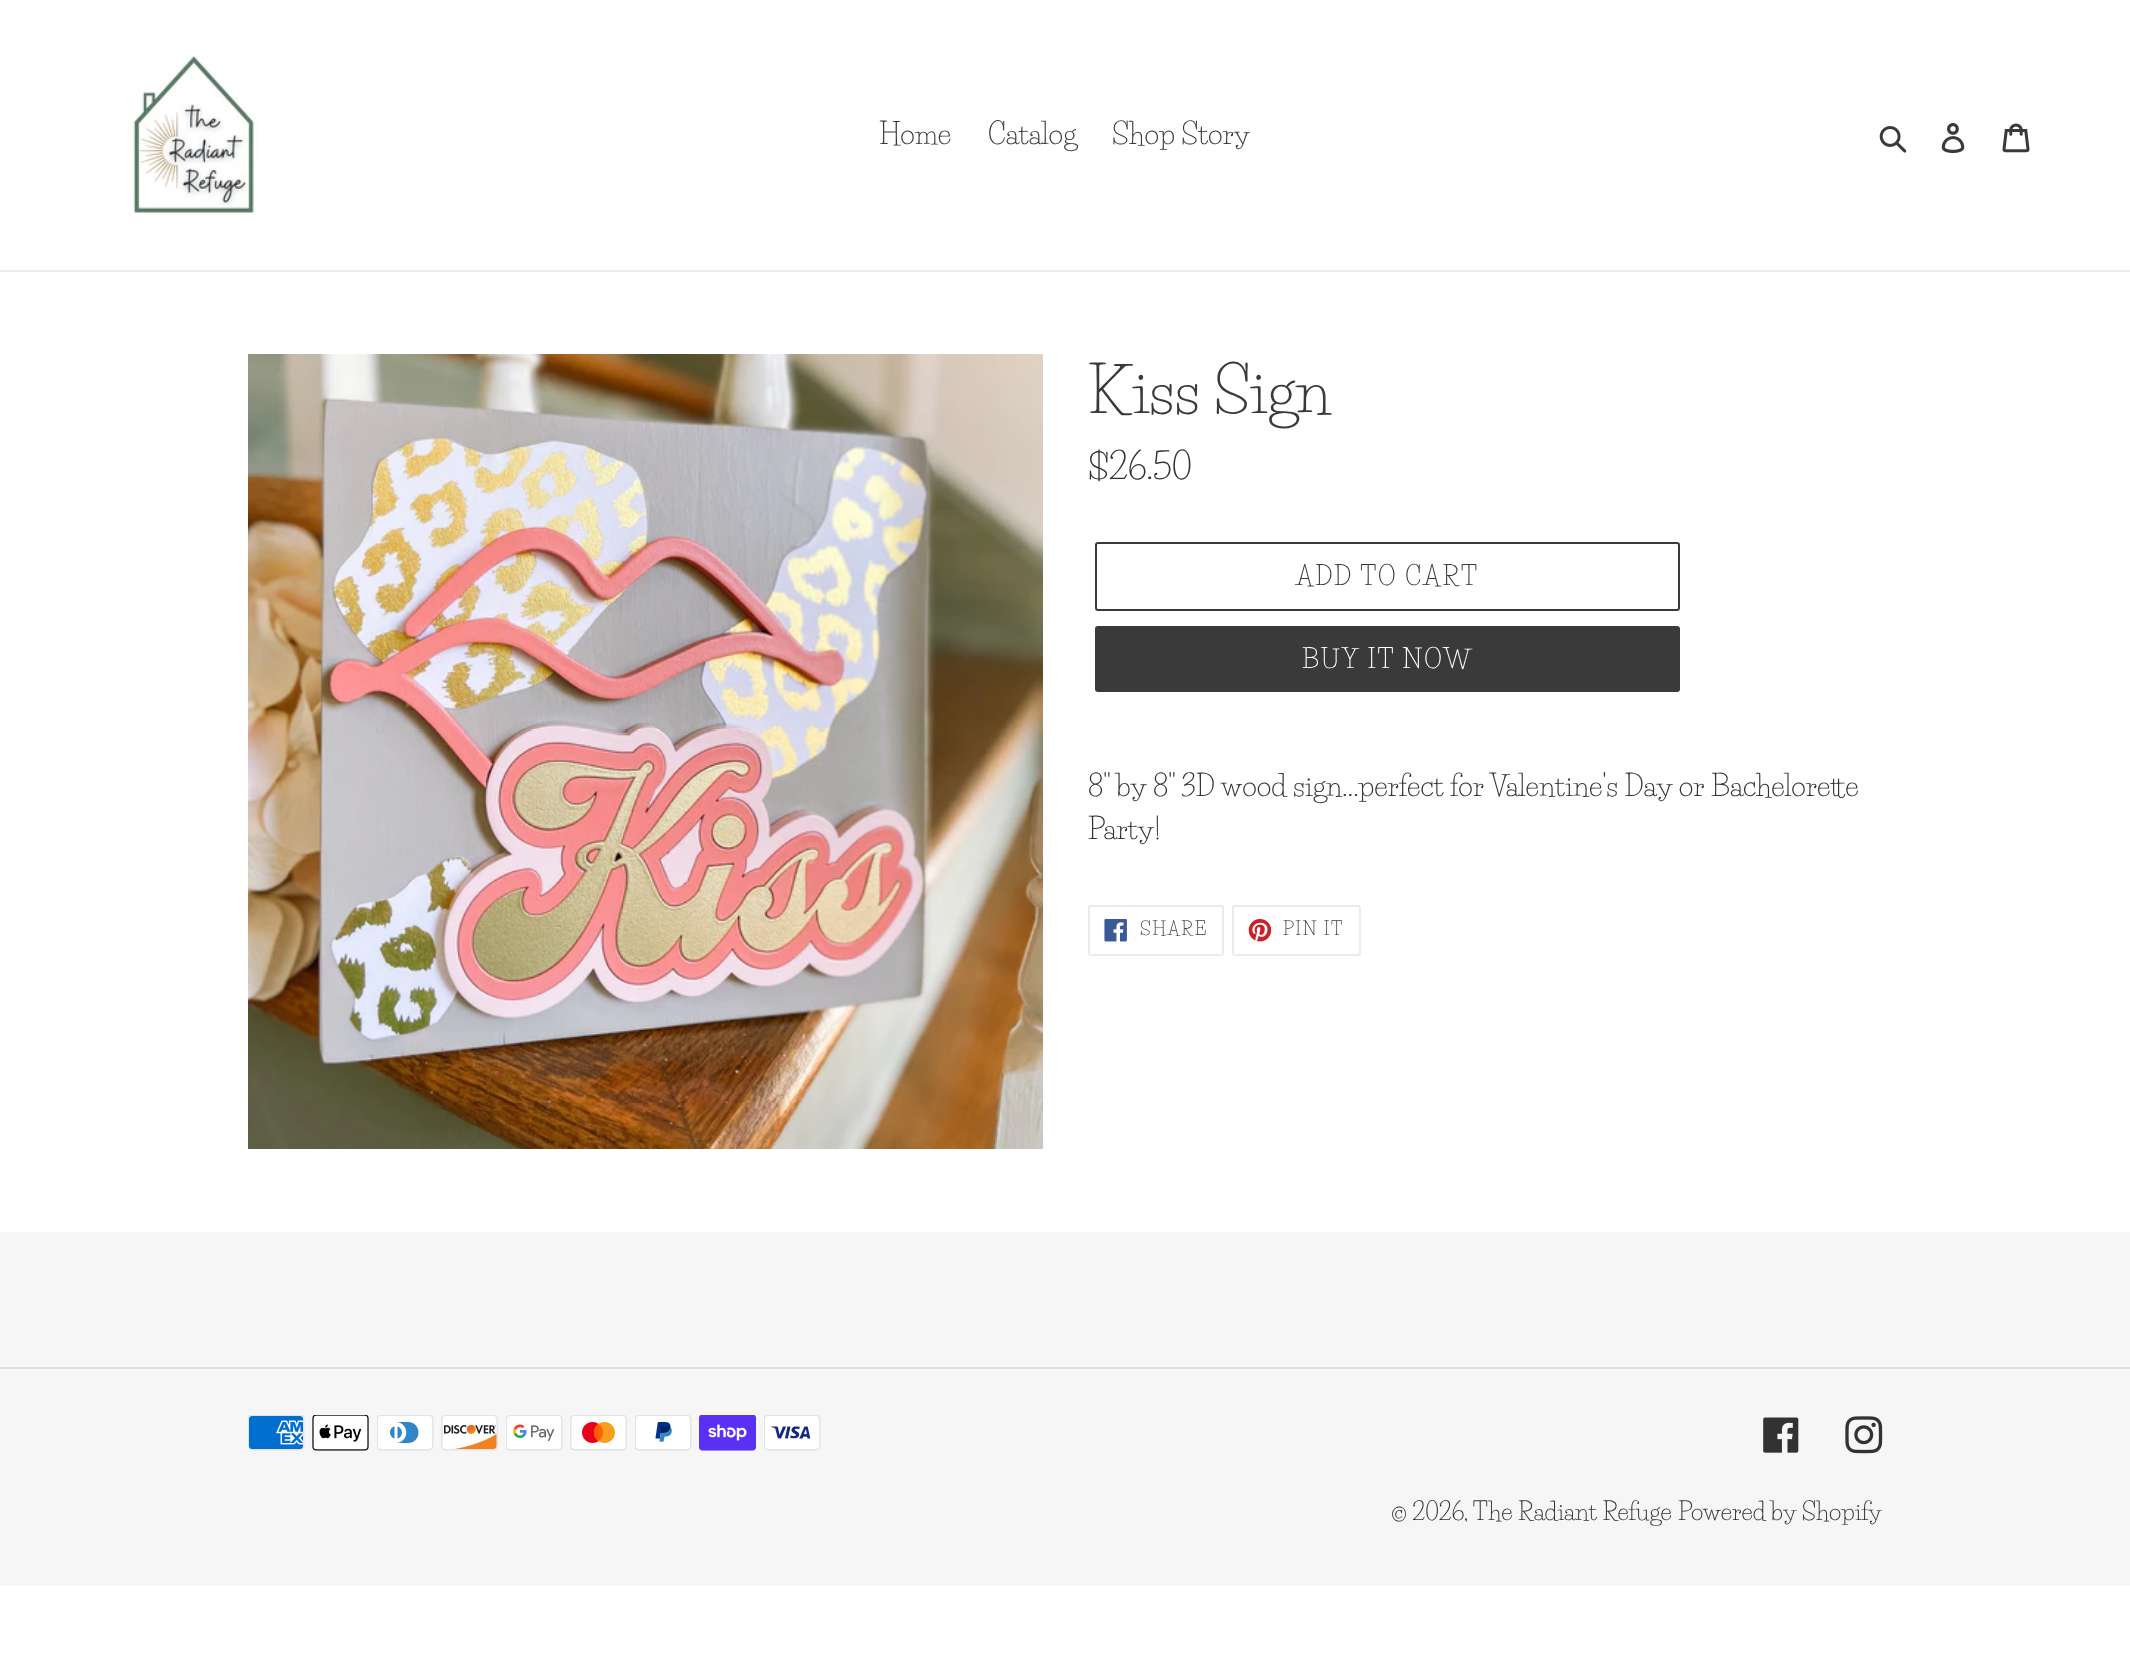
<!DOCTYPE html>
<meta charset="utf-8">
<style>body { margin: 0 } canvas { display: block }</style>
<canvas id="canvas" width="2130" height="1680"></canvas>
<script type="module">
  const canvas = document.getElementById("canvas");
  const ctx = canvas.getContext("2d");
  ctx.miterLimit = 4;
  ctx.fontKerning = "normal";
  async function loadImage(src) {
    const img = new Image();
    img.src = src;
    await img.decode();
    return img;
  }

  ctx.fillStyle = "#ffffff";
  ctx.fillRect(0, 0, 2130, 1680);
  ctx.fillStyle = "#ebebeb";
  ctx.fillRect(0, 270, 2130, 2);
  ctx.drawImage(await loadImage("img1.png"), 133, 56, 125, 157);
  ctx.font = "28.5px Life Savers";
  ctx.fillStyle = "#3a3a3a";
  ctx.fillText("Home", 879, 144);
  ctx.fillText("Catalog", 988, 144);
  ctx.fillText("Shop Story", 1112, 144);
  ctx.drawImage(await loadImage("img2.png"), 1879, 126, 28, 27);
  ctx.drawImage(await loadImage("img3.png"), 1941, 123, 24, 30);
  ctx.drawImage(await loadImage("img4.png"), 2002, 123, 28, 30);
  ctx.drawImage(await loadImage("img5.png"), 248, 354, 795, 795);
  ctx.font = "61.5px Life Savers";
  ctx.fillText("Kiss Sign", 1088, 413);
  ctx.font = "35.5px Life Savers";
  ctx.fillStyle = "#333232";
  ctx.fillText("$26.50", 1088, 479);
  ctx.beginPath();
  ctx.roundRect(1096, 543, 583, 67, 2);
  ctx.strokeStyle = "#3a3a3a";
  ctx.lineWidth = 2;
  ctx.stroke();
  ctx.letterSpacing = "2px";
  ctx.font = "25.5px Life Savers";
  ctx.fillStyle = "#3a3a3a";
  ctx.fillText("ADD TO CART", 1296, 585);
  ctx.beginPath();
  ctx.roundRect(1095, 626, 585, 66, 3);
  ctx.fill();
  ctx.fillStyle = "#ffffff";
  ctx.fillText("BUY IT NOW", 1302, 668);
  ctx.letterSpacing = "0px";
  ctx.font = "28.5px Life Savers";
  ctx.fillStyle = "#333232";
  ctx.fillText("8\" by 8\" 3D wood sign...perfect for Valentine's Day or Bachelorette", 1088, 796);
  ctx.fillText("Party!", 1088, 839);
  ctx.beginPath();
  ctx.roundRect(1089, 906, 134, 49, 2);
  ctx.strokeStyle = "#ebebeb";
  ctx.stroke();
  ctx.drawImage(await loadImage("img6.png"), 1104, 919, 23, 23);
  ctx.letterSpacing = "1.5px";
  ctx.font = "18px Life Savers";
  ctx.fillStyle = "#3a3a3a";
  ctx.fillText("SHARE", 1140, 935);
  ctx.beginPath();
  ctx.roundRect(1233, 906, 127, 49, 2);
  ctx.stroke();
  ctx.drawImage(await loadImage("img7.png"), 1248, 919, 24, 23);
  ctx.fillText("PIN IT", 1283, 935);
  ctx.fillStyle = "#f6f6f6";
  ctx.fillRect(0, 1232, 2130, 354);
  ctx.fillStyle = "#dddddd";
  ctx.fillRect(0, 1367, 2130, 2);
  ctx.drawImage(await loadImage("img8.png"), 248, 1415, 57, 36);
  ctx.drawImage(await loadImage("img9.png"), 312, 1415, 57, 36);
  ctx.drawImage(await loadImage("img10.png"), 377, 1415, 57, 36);
  ctx.drawImage(await loadImage("img11.png"), 441, 1415, 57, 36);
  ctx.drawImage(await loadImage("img12.png"), 506, 1415, 57, 36);
  ctx.drawImage(await loadImage("img13.png"), 570, 1415, 57, 36);
  ctx.drawImage(await loadImage("img14.png"), 635, 1415, 57, 36);
  ctx.drawImage(await loadImage("img15.png"), 699, 1415, 57, 36);
  ctx.drawImage(await loadImage("img16.png"), 764, 1415, 57, 36);
  ctx.drawImage(await loadImage("img17.png"), 1763, 1417, 36, 36);
  ctx.drawImage(await loadImage("img18.png"), 1845, 1416, 38, 38);
  ctx.letterSpacing = "0px";
  ctx.font = "24px Life Savers";
  ctx.fillStyle = "#333232";
  ctx.fillText("© 2026,", 1391, 1520);
  ctx.fillText("The Radiant Refuge", 1473, 1520);
  ctx.fillText("Powered by Shopify", 1678, 1520);
</script>
